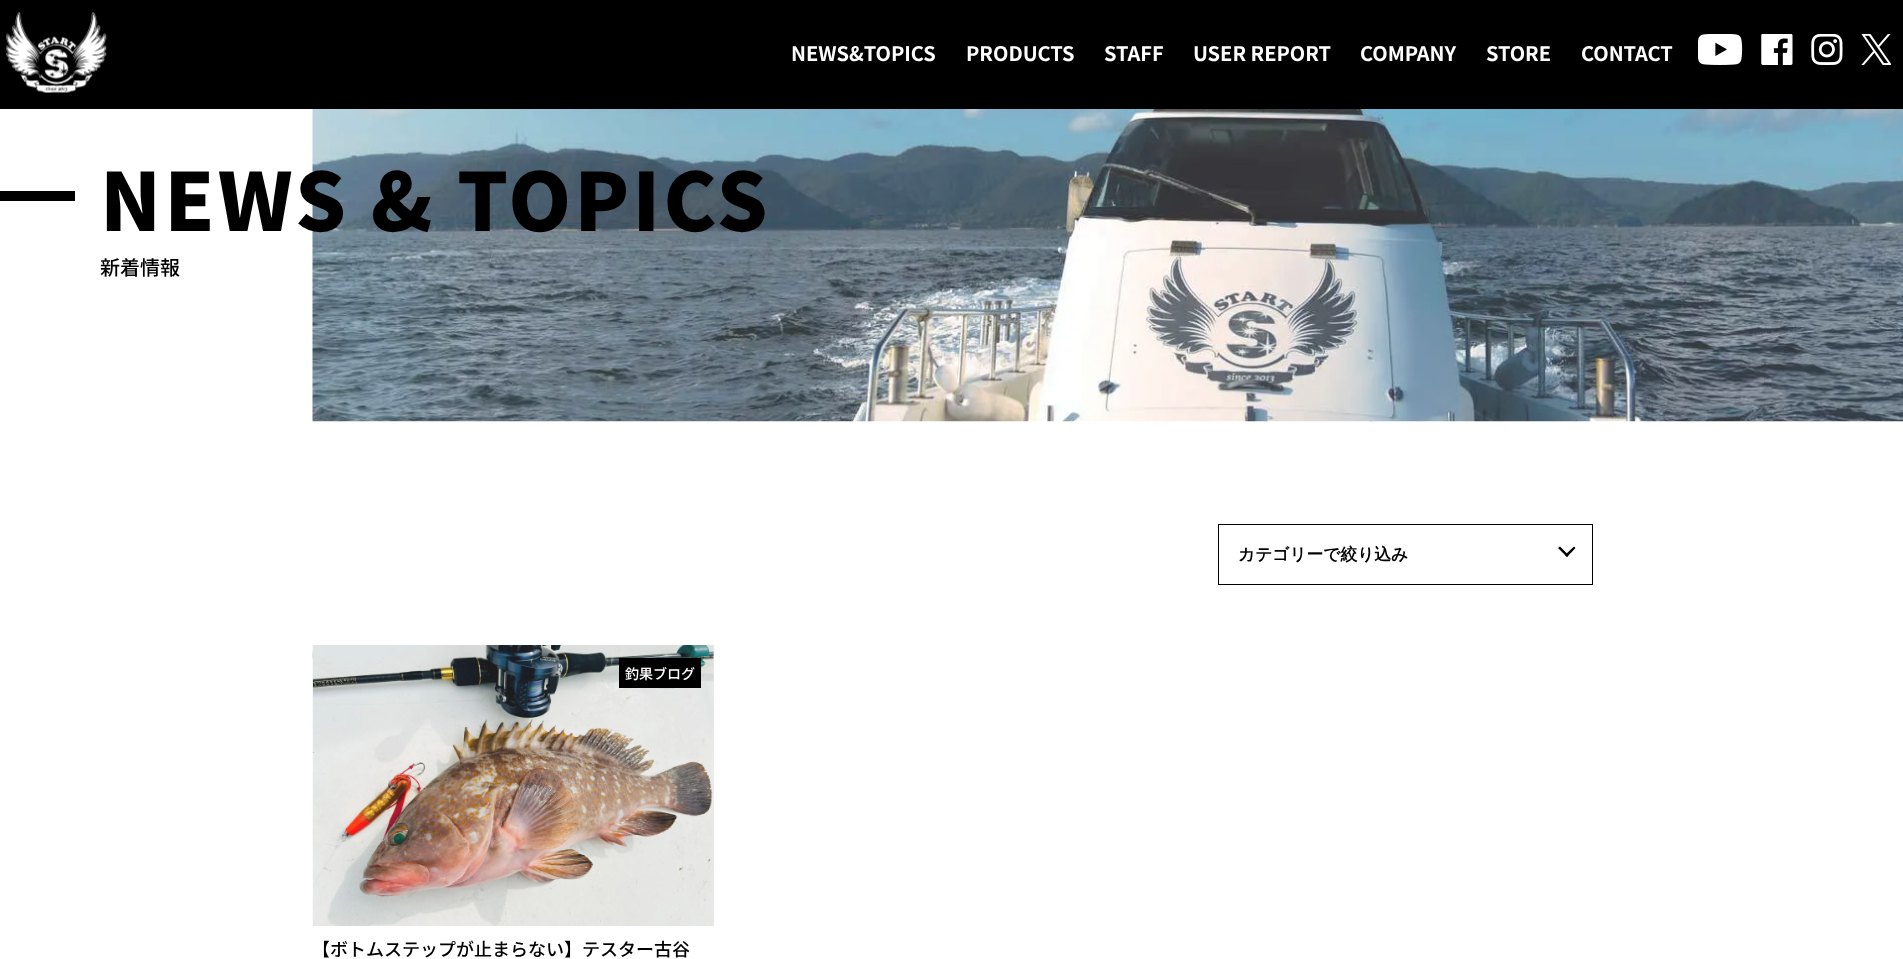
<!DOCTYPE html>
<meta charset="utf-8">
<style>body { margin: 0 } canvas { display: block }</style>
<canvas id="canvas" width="1903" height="959"></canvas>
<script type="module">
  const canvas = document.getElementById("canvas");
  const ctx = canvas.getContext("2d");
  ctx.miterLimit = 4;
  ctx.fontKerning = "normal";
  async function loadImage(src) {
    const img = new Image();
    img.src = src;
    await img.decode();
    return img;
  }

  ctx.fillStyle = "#ffffff";
  ctx.fillRect(0, 0, 1903, 959);
  ctx.fillStyle = "#000000";
  ctx.fillRect(0, 0, 1903, 109);
  ctx.drawImage(await loadImage("img1.png"), 6, 12, 101, 81);
  ctx.font = "bold 20px Noto Sans JP";
  ctx.fillStyle = "#ffffff";
  ctx.fillText("NEWS&TOPICS", 791, 61);
  ctx.fillText("PRODUCTS", 966, 61);
  ctx.fillText("STAFF", 1104, 61);
  ctx.fillText("USER REPORT", 1193, 61);
  ctx.fillText("COMPANY", 1360, 61);
  ctx.fillText("STORE", 1486, 61);
  ctx.fillText("CONTACT", 1581, 61);
  ctx.drawImage(await loadImage("img2.png"), 1698, 34, 45, 31);
  ctx.drawImage(await loadImage("img3.png"), 1761, 34, 32, 31);
  ctx.drawImage(await loadImage("img4.png"), 1811, 34, 32, 31);
  ctx.drawImage(await loadImage("img5.png"), 1861, 34, 30, 31);
  ctx.drawImage(await loadImage("img6.png"), 312, 109, 1591, 313);
  ctx.fillStyle = "#000000";
  ctx.fillRect(0, 191, 75, 10);
  ctx.letterSpacing = "3.1px";
  ctx.font = "900 80px Noto Sans JP";
  ctx.fillText("NEWS & TOPICS", 100, 231);
  ctx.letterSpacing = "0px";
  ctx.font = "500 20px Noto Sans JP";
  ctx.fillText("新着情報", 100, 275);
  ctx.strokeStyle = "#000000";
  ctx.strokeRect(1218.5, 524.5, 374, 60);
  ctx.font = "bold 16.75px WenQuanYi Zen Hei";
  ctx.fillText("カテゴリーで絞り込み", 1238, 560);
  ctx.beginPath();
  ctx.moveTo(1567, 557);
  ctx.lineTo(1558, 548);
  ctx.lineTo(1560, 546.5);
  ctx.lineTo(1568.5, 555);
  ctx.closePath();
  ctx.fill();
  ctx.beginPath();
  ctx.moveTo(1567, 557);
  ctx.lineTo(1565, 555);
  ctx.lineTo(1574, 546.5);
  ctx.lineTo(1575.5, 548);
  ctx.closePath();
  ctx.fill();
  ctx.fillStyle = "#eeeeee";
  ctx.fillRect(313, 645, 401, 281);
  ctx.drawImage(await loadImage("img7.png"), 312, 645, 402, 281);
  ctx.fillStyle = "#000000";
  ctx.fillRect(619, 658, 82, 30);
  ctx.font = "500 14px Noto Sans JP";
  ctx.fillStyle = "#ffffff";
  ctx.fillText("釣果ブログ", 625, 679);
  ctx.font = "500 18px Noto Sans JP";
  ctx.fillStyle = "#000000";
  ctx.fillText("【ボトムステップが止まらない】テスター古谷", 312, 956);
</script>
